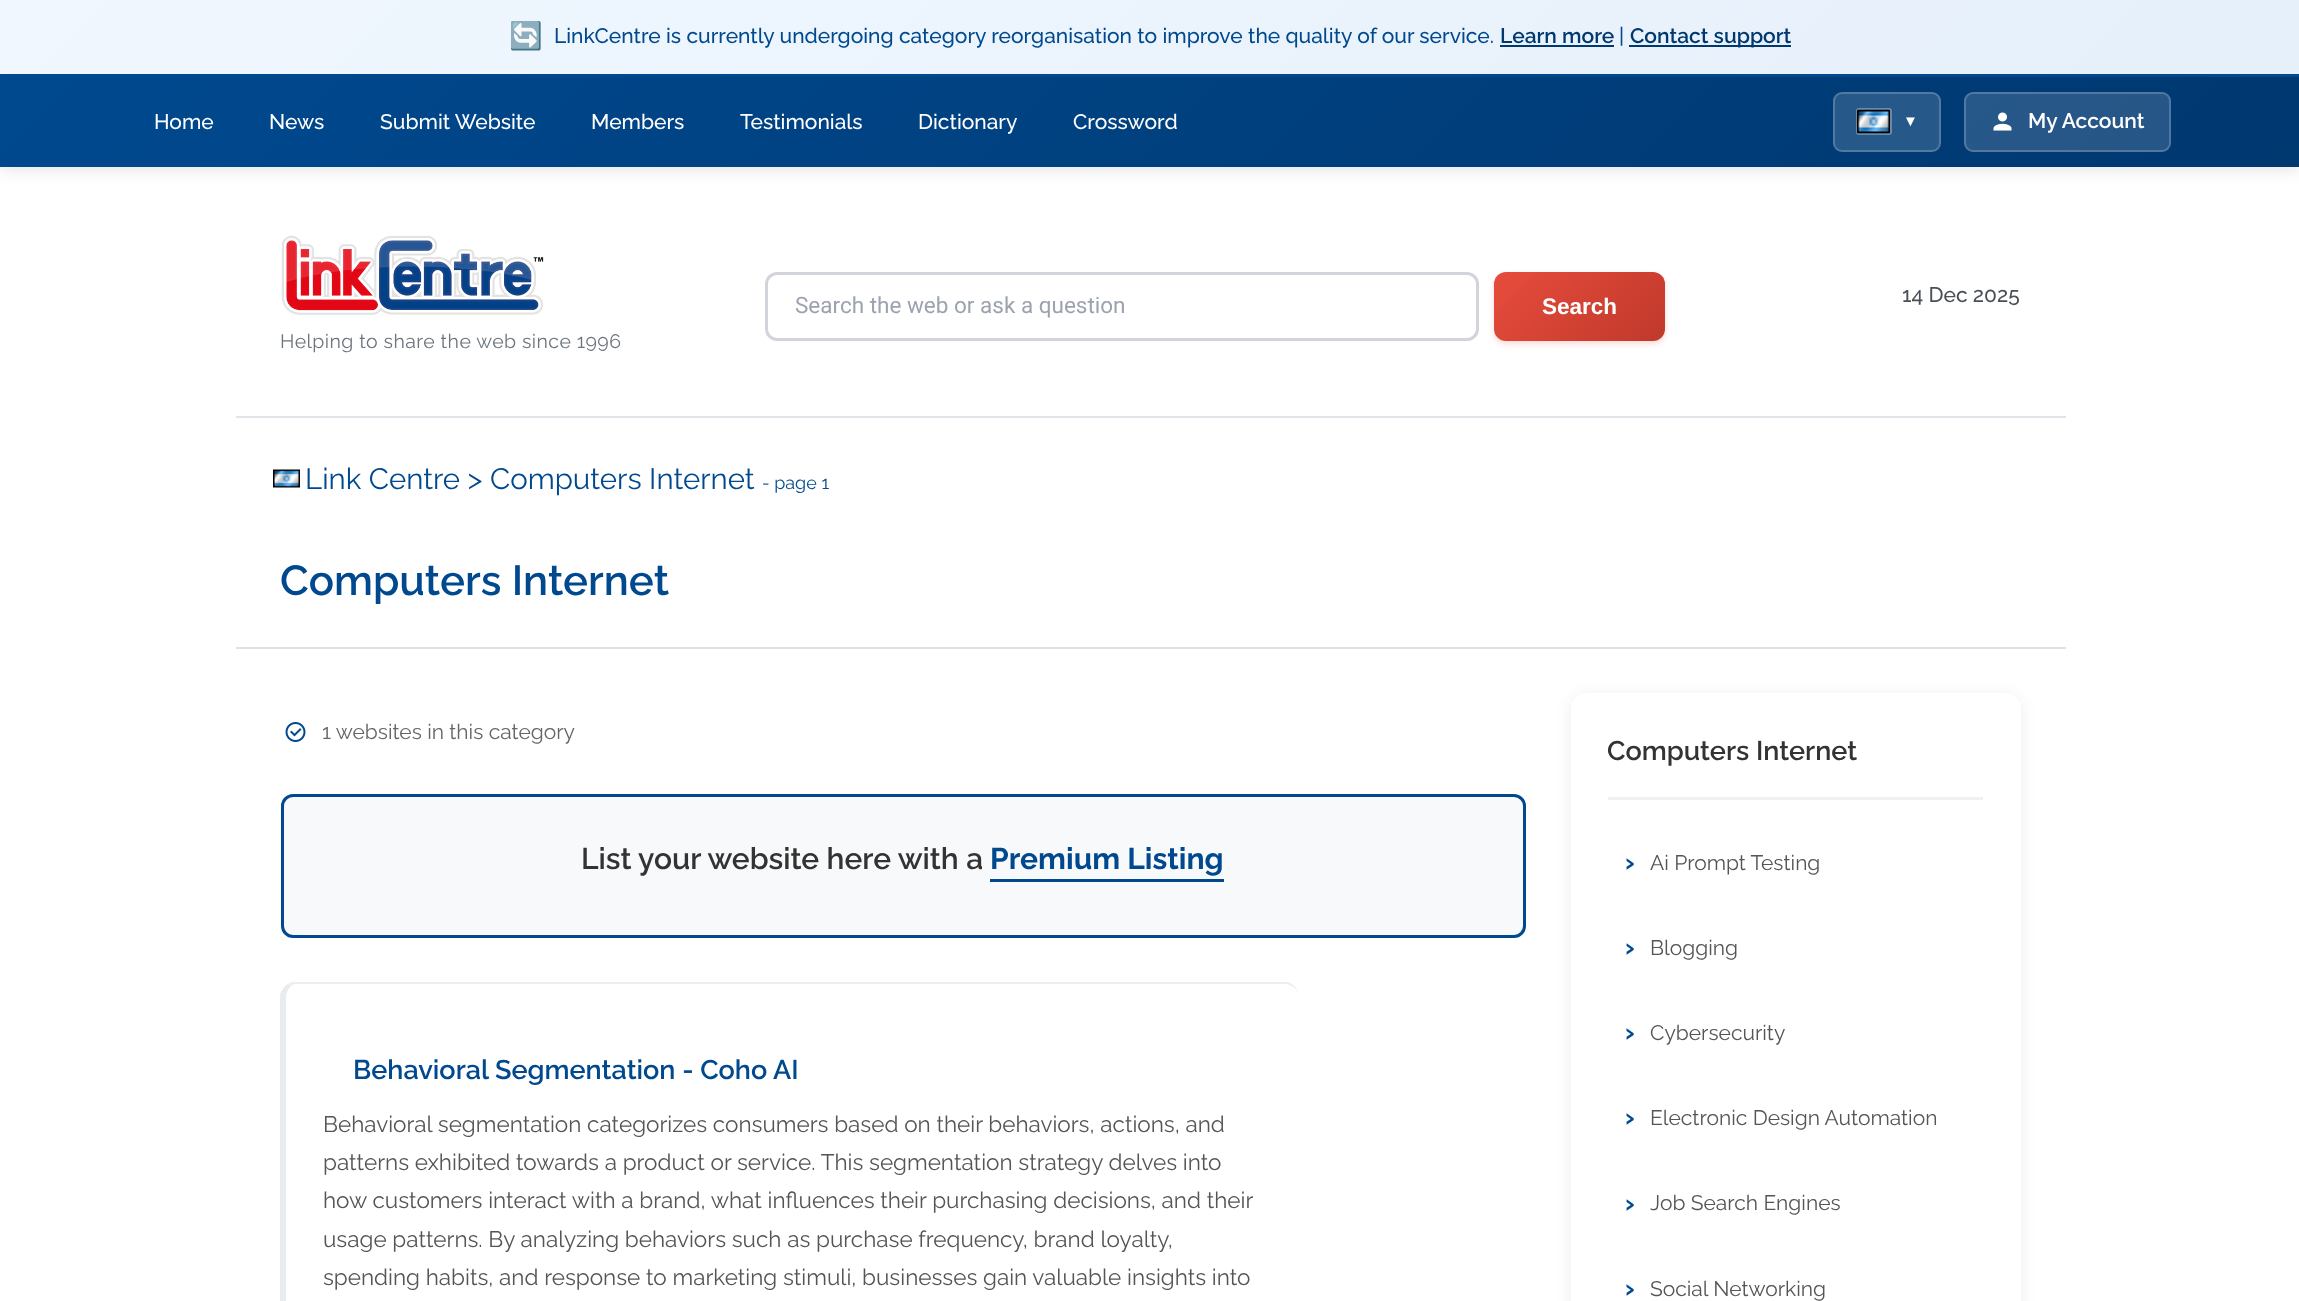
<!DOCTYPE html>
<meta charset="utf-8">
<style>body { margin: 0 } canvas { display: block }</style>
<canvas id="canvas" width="2299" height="1301"></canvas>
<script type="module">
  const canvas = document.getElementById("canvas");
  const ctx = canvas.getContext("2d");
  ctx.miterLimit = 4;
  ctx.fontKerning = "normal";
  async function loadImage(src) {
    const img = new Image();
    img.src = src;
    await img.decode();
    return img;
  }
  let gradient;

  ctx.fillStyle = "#ffffff";
  ctx.fillRect(0, 0, 2299, 1301);
  ctx.fillStyle = "rgba(0, 0, 0, 0.1)";
  ctx.filter = "blur(7.5px)";
  ctx.beginPath();
  ctx.rect(0, 80, 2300, 90);
  ctx.fill();
  ctx.filter = "none";
  gradient = ctx.createLinearGradient(557, -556, 1743, 630);
  gradient.addColorStop(0, "#f0f7ff");
  gradient.addColorStop(1, "#e6f0fa");
  ctx.fillStyle = gradient;
  ctx.fillRect(0, 0, 2299, 74);
  ctx.fillStyle = "#00498f";
  ctx.fillRect(0, 74, 2299, 3);
  ctx.font = "27px Noto Color Emoji";
  ctx.fillStyle = "#000000";
  ctx.fillText("🔄", 509, 45);
  ctx.font = "500 21px Raleway";
  ctx.fillStyle = "#00498f";
  ctx.fillText("LinkCentre is currently undergoing category reorganisation to improve the quality of our service.", 554, 43);
  ctx.font = "600 21px Raleway";
  ctx.fillStyle = "#003870";
  ctx.fillText("Learn more", 1500, 43);
  ctx.fillRect(1500, 45, 114, 2);
  ctx.font = "500 21px Raleway";
  ctx.fillStyle = "#00498f";
  ctx.fillText("|", 1619, 43);
  ctx.fillStyle = "#003870";
  ctx.fillRect(1629, 45, 162, 2);
  ctx.font = "600 21px Raleway";
  ctx.fillText("Contact support", 1630, 43);
  gradient = ctx.createLinearGradient(552, -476, 1747, 719);
  gradient.addColorStop(0, "#00498f");
  gradient.addColorStop(1, "#003870");
  ctx.fillStyle = gradient;
  ctx.fillRect(0, 77, 2299, 90);
  ctx.font = "500 21px Raleway";
  ctx.fillStyle = "#ffffff";
  ctx.fillText("Home", 154, 129);
  ctx.fillText("News", 269, 129);
  ctx.fillText("Submit Website", 380, 129);
  ctx.fillText("Members", 591, 129);
  ctx.fillText("Testimonials", 740, 129);
  ctx.fillText("Dictionary", 918, 129);
  ctx.fillText("Crossword", 1073, 129);
  ctx.fillStyle = "#26598a";
  ctx.beginPath();
  ctx.roundRect(1833, 92, 108, 60, 9);
  ctx.fill();
  ctx.beginPath();
  ctx.roundRect(1834, 93, 106, 58, 8);
  ctx.strokeStyle = "rgba(255, 255, 255, 0.2)";
  ctx.lineWidth = 2;
  ctx.stroke();
  ctx.beginPath();
  ctx.roundRect(1857, 109, 34, 25, 2);
  ctx.strokeStyle = "#678bad";
  ctx.stroke();
  ctx.drawImage(await loadImage("img1.png"), 1857, 109, 33, 25);
  ctx.font = "15px Liberation Sans";
  ctx.fillStyle = "#ffffff";
  ctx.fillText("▼", 1903, 126);
  ctx.fillStyle = "rgba(255, 255, 255, 0.15)";
  ctx.beginPath();
  ctx.roundRect(1964, 92, 207, 60, 9);
  ctx.fill();
  ctx.beginPath();
  ctx.roundRect(1965, 93, 205, 58, 8);
  ctx.strokeStyle = "rgba(255, 255, 255, 0.2)";
  ctx.stroke();
  ctx.drawImage(await loadImage("img2.png"), 1993, 112, 19, 19);
  ctx.font = "600 21px Raleway";
  ctx.fillStyle = "#ffffff";
  ctx.fillText("My Account", 2028, 128);
  ctx.fillStyle = "#e1e4e8";
  ctx.fillRect(236, 416, 1830, 2);
  ctx.beginPath();
  ctx.roundRect(766.5, 273.5, 711, 66, 10.5);
  ctx.strokeStyle = "#d1d5db";
  ctx.lineWidth = 3;
  ctx.stroke();
  ctx.font = "22.5px Roboto";
  ctx.fillStyle = "#9ca3af";
  ctx.fillText("Search the web or ask a question", 795, 313);
  ctx.fillStyle = "rgba(231, 76, 60, 0.2)";
  ctx.filter = "blur(3px)";
  ctx.beginPath();
  ctx.roundRect(1494, 275, 171, 69, 12);
  ctx.fill();
  ctx.filter = "none";
  gradient = ctx.createLinearGradient(1520, 246, 1640, 366);
  gradient.addColorStop(0, "#e74c3c");
  gradient.addColorStop(1, "#c0392b");
  ctx.fillStyle = gradient;
  ctx.beginPath();
  ctx.roundRect(1494, 272, 171, 69, 12);
  ctx.fill();
  ctx.font = "bold 22.5px Liberation Sans";
  ctx.fillStyle = "#ffffff";
  ctx.fillText("Search", 1542, 314);
  ctx.font = "500 21px Raleway";
  ctx.fillStyle = "#495057";
  ctx.fillText("14 Dec 2025", 1902, 302);
  ctx.drawImage(await loadImage("img3.png"), 281, 235, 263, 80);
  ctx.letterSpacing = "0.45px";
  ctx.font = "19.5px Raleway";
  ctx.fillStyle = "#6c757d";
  ctx.fillText("Helping to share the web since 1996", 280, 348);
  ctx.drawImage(await loadImage("img4.png"), 273, 469, 27, 19);
  ctx.letterSpacing = "0px";
  ctx.font = "29.4px Raleway";
  ctx.fillStyle = "#00498f";
  ctx.fillText("Link Centre > Computers Internet", 305, 489);
  ctx.font = "18px Raleway";
  ctx.fillText("- page 1", 762, 489);
  ctx.fillStyle = "#dee2e6";
  ctx.fillRect(236, 647, 1830, 2);
  ctx.font = "600 42px Raleway";
  ctx.fillStyle = "#00498f";
  ctx.fillText("Computers Internet", 280, 595);
  ctx.drawImage(await loadImage("img5.png"), 285, 722, 21, 20);
  ctx.font = "21px Raleway";
  ctx.fillStyle = "#666666";
  ctx.fillText("1 websites in this category", 322, 739);
  ctx.fillStyle = "#f8f9fa";
  ctx.beginPath();
  ctx.roundRect(282.5, 795.5, 1242, 141, 10.5);
  ctx.fill();
  ctx.strokeStyle = "#00498f";
  ctx.stroke();
  ctx.font = "600 30px Raleway";
  ctx.fillStyle = "#333333";
  ctx.fillText("List your website here with a", 581, 869);
  ctx.font = "bold 30px Raleway";
  ctx.fillStyle = "#00498f";
  ctx.fillText("Premium Listing", 990, 869);
  ctx.fillRect(990, 879, 234, 3);
  ctx.fillStyle = "#eeeeee";
  ctx.beginPath();
  ctx.moveTo(296, 984);
  ctx.lineTo(292, 985);
  ctx.lineTo(288, 984);
  ctx.lineTo(292, 982);
  ctx.lineTo(1288, 982);
  ctx.bezierCurveTo(1294, 984, 1299, 990, 1299, 998);
  ctx.bezierCurveTo(1299, 990, 1292, 984, 1284, 984);
  ctx.closePath();
  ctx.fill();
  ctx.fillStyle = "#e9ecef";
  ctx.beginPath();
  ctx.moveTo(280, 994);
  ctx.bezierCurveTo(282, 990, 284, 986, 288, 984);
  ctx.lineTo(292, 985);
  ctx.bezierCurveTo(289, 988, 286, 992, 286, 998);
  ctx.lineTo(286, 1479);
  ctx.bezierCurveTo(286, 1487, 291, 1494, 296, 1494);
  ctx.bezierCurveTo(288, 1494, 282, 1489, 280, 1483);
  ctx.closePath();
  ctx.fill();
  ctx.font = "600 27px Raleway";
  ctx.fillStyle = "#00498f";
  ctx.fillText("Behavioral Segmentation - Coho AI", 353, 1079);
  ctx.font = "22.5px Raleway";
  ctx.fillStyle = "#555555";
  ctx.fillText("Behavioral segmentation categorizes consumers based on their behaviors, actions, and", 323, 1132);
  ctx.fillText("patterns exhibited towards a product or service. This segmentation strategy delves into", 323, 1170);
  ctx.fillText("how customers interact with a brand, what influences their purchasing decisions, and their", 323, 1208);
  ctx.fillText("usage patterns. By analyzing behaviors such as purchase frequency, brand loyalty,", 323, 1247);
  ctx.fillText("spending habits, and response to marketing stimuli, businesses gain valuable insights into", 323, 1285);
  ctx.fillStyle = "rgba(0, 0, 0, 0.08)";
  ctx.filter = "blur(7.5px)";
  ctx.beginPath();
  ctx.roundRect(1571, 696, 450, 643, 15);
  ctx.fill();
  ctx.filter = "none";
  ctx.fillStyle = "#ffffff";
  ctx.beginPath();
  ctx.roundRect(1571, 693, 450, 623, 15);
  ctx.fill();
  ctx.fillStyle = "#f0f0f0";
  ctx.fillRect(1608, 797, 375, 3);
  ctx.font = "600 27px Raleway";
  ctx.fillStyle = "#333333";
  ctx.fillText("Computers Internet", 1607, 760);
  ctx.font = "bold 27px Raleway";
  ctx.fillStyle = "#00498f";
  ctx.fillText("›", 1625, 871);
  ctx.font = "21px Raleway";
  ctx.fillStyle = "#555555";
  ctx.fillText("Ai Prompt Testing", 1650, 870);
  ctx.font = "bold 27px Raleway";
  ctx.fillStyle = "#00498f";
  ctx.fillText("›", 1625, 956);
  ctx.font = "21px Raleway";
  ctx.fillStyle = "#555555";
  ctx.fillText("Blogging", 1650, 955);
  ctx.font = "bold 27px Raleway";
  ctx.fillStyle = "#00498f";
  ctx.fillText("›", 1625, 1041);
  ctx.font = "21px Raleway";
  ctx.fillStyle = "#555555";
  ctx.fillText("Cybersecurity", 1650, 1040);
  ctx.font = "bold 27px Raleway";
  ctx.fillStyle = "#00498f";
  ctx.fillText("›", 1625, 1126);
  ctx.font = "21px Raleway";
  ctx.fillStyle = "#555555";
  ctx.fillText("Electronic Design Automation", 1650, 1125);
  ctx.font = "bold 27px Raleway";
  ctx.fillStyle = "#00498f";
  ctx.fillText("›", 1625, 1212);
  ctx.font = "21px Raleway";
  ctx.fillStyle = "#555555";
  ctx.fillText("Job Search Engines", 1650, 1210);
  ctx.font = "bold 27px Raleway";
  ctx.fillStyle = "#00498f";
  ctx.fillText("›", 1625, 1297);
  ctx.font = "21px Raleway";
  ctx.fillStyle = "#555555";
  ctx.fillText("Social Networking", 1650, 1296);
</script>
